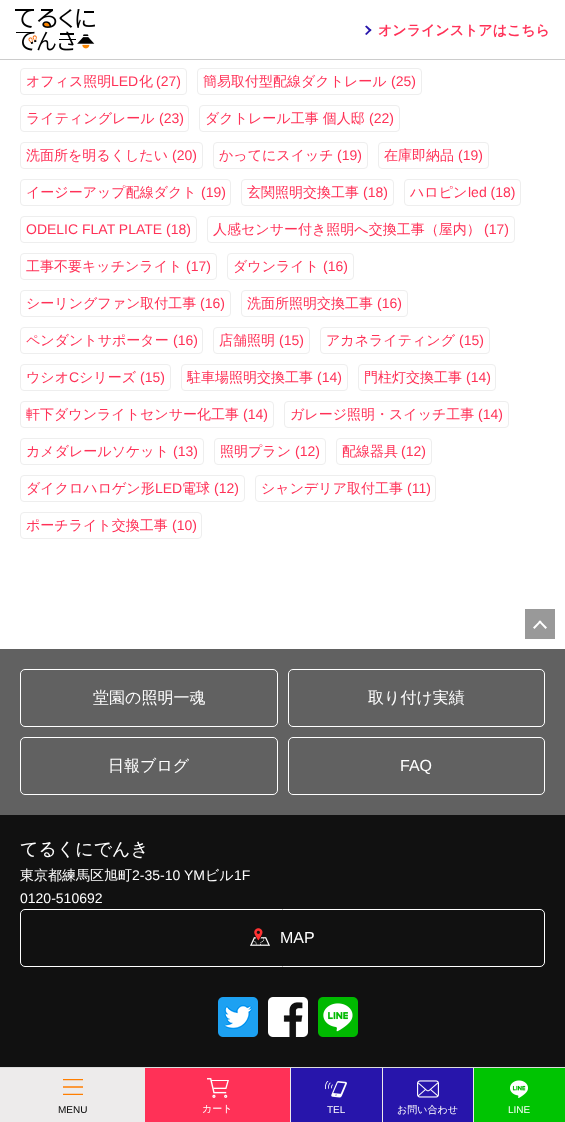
<!DOCTYPE html>
<meta charset="utf-8">
<style>body { margin: 0 } canvas { display: block }</style>
<canvas id="canvas" width="565" height="1122"></canvas>
<script type="module">
  const canvas = document.getElementById("canvas");
  const ctx = canvas.getContext("2d");
  ctx.miterLimit = 4;
  ctx.fontKerning = "normal";
  async function loadImage(src) {
    const img = new Image();
    img.src = src;
    await img.decode();
    return img;
  }

  ctx.fillStyle = "#ffffff";
  ctx.fillRect(0, 0, 565, 1122);
  ctx.fillStyle = "#cccccc";
  ctx.fillRect(0, 59, 565, 1);
  ctx.drawImage(await loadImage("img1.png"), 15, 9, 80, 42);
  ctx.fillStyle = "#2715ab";
  ctx.beginPath();
  ctx.moveTo(366.5, 25.5);
  ctx.lineTo(371.5, 30);
  ctx.lineTo(370, 31.5);
  ctx.lineTo(365, 26.5);
  ctx.closePath();
  ctx.fill();
  ctx.beginPath();
  ctx.moveTo(370, 29);
  ctx.lineTo(371.5, 30);
  ctx.lineTo(366.5, 35);
  ctx.lineTo(365, 34);
  ctx.closePath();
  ctx.fill();
  ctx.font = "bold 14px WenQuanYi Zen Hei";
  ctx.fillStyle = "#ff3157";
  ctx.fillText("オンラインストアはこちら", 378, 35);
  ctx.beginPath();
  ctx.roundRect(20.5, 68.5, 166, 26, 3.5);
  ctx.strokeStyle = "#eeeeee";
  ctx.stroke();
  ctx.font = "500 14px WenQuanYi Zen Hei";
  ctx.fillText("オフィス照明", 26, 86);
  ctx.font = "14px Liberation Sans";
  ctx.fillText("LED", 111, 86);
  ctx.font = "500 14px WenQuanYi Zen Hei";
  ctx.fillText("化", 139, 86);
  ctx.font = "14px Liberation Sans";
  ctx.fillText("(27)", 156, 86);
  ctx.beginPath();
  ctx.roundRect(197.5, 68.5, 224, 26, 3.5);
  ctx.stroke();
  ctx.font = "500 14px WenQuanYi Zen Hei";
  ctx.fillText("簡易取付型配線ダクトレール", 203, 86);
  ctx.font = "14px Liberation Sans";
  ctx.fillText("(25)", 391, 86);
  ctx.beginPath();
  ctx.roundRect(20.5, 105.5, 168, 26, 3.5);
  ctx.stroke();
  ctx.font = "500 14px WenQuanYi Zen Hei";
  ctx.fillText("ライティングレール", 26, 123);
  ctx.font = "14px Liberation Sans";
  ctx.fillText("(23)", 159, 123);
  ctx.beginPath();
  ctx.roundRect(199.5, 105.5, 200, 26, 3.5);
  ctx.stroke();
  ctx.font = "500 14px WenQuanYi Zen Hei";
  ctx.fillText("ダクトレール工事 個人邸", 205, 123);
  ctx.font = "14px Liberation Sans";
  ctx.fillText("(22)", 369, 123);
  ctx.beginPath();
  ctx.roundRect(20.5, 142.5, 182, 26, 3.5);
  ctx.stroke();
  ctx.font = "500 14px WenQuanYi Zen Hei";
  ctx.fillText("洗面所を明るくしたい", 26, 160);
  ctx.font = "14px Liberation Sans";
  ctx.fillText("(20)", 172, 160);
  ctx.beginPath();
  ctx.roundRect(213.5, 142.5, 154, 26, 3.5);
  ctx.stroke();
  ctx.font = "500 14px WenQuanYi Zen Hei";
  ctx.fillText("かってにスイッチ", 219, 160);
  ctx.font = "14px Liberation Sans";
  ctx.fillText("(19)", 337, 160);
  ctx.beginPath();
  ctx.roundRect(378.5, 142.5, 110, 26, 3.5);
  ctx.stroke();
  ctx.font = "500 14px WenQuanYi Zen Hei";
  ctx.fillText("在庫即納品", 384, 160);
  ctx.font = "14px Liberation Sans";
  ctx.fillText("(19)", 458, 160);
  ctx.beginPath();
  ctx.roundRect(20.5, 179.5, 210, 26, 3.5);
  ctx.stroke();
  ctx.font = "500 14px WenQuanYi Zen Hei";
  ctx.fillText("イージーアップ配線ダクト", 26, 197);
  ctx.font = "14px Liberation Sans";
  ctx.fillText("(19)", 201, 197);
  ctx.beginPath();
  ctx.roundRect(241.5, 179.5, 152, 26, 3.5);
  ctx.stroke();
  ctx.font = "500 14px WenQuanYi Zen Hei";
  ctx.fillText("玄関照明交換工事", 247, 197);
  ctx.font = "14px Liberation Sans";
  ctx.fillText("(18)", 363, 197);
  ctx.beginPath();
  ctx.roundRect(404.5, 179.5, 116, 26, 3.5);
  ctx.stroke();
  ctx.font = "500 14px WenQuanYi Zen Hei";
  ctx.fillText("ハロピン", 410, 197);
  ctx.font = "14px Liberation Sans";
  ctx.fillText("led (18)", 468, 197);
  ctx.beginPath();
  ctx.roundRect(20.5, 216.5, 176, 26, 3.5);
  ctx.stroke();
  ctx.fillText("ODELIC FLAT PLATE (18)", 26, 234);
  ctx.beginPath();
  ctx.roundRect(207.5, 216.5, 307, 26, 3.5);
  ctx.stroke();
  ctx.font = "500 14px WenQuanYi Zen Hei";
  ctx.fillText("人感センサー付き照明へ交換工事（屋内）", 213, 234);
  ctx.font = "14px Liberation Sans";
  ctx.fillText("(17)", 484, 234);
  ctx.beginPath();
  ctx.roundRect(20.5, 253.5, 196, 26, 3.5);
  ctx.stroke();
  ctx.font = "500 14px WenQuanYi Zen Hei";
  ctx.fillText("工事不要キッチンライト", 26, 271);
  ctx.font = "14px Liberation Sans";
  ctx.fillText("(17)", 186, 271);
  ctx.beginPath();
  ctx.roundRect(227.5, 253.5, 126, 26, 3.5);
  ctx.stroke();
  ctx.font = "500 14px WenQuanYi Zen Hei";
  ctx.fillText("ダウンライト", 233, 271);
  ctx.font = "14px Liberation Sans";
  ctx.fillText("(16)", 323, 271);
  ctx.beginPath();
  ctx.roundRect(20.5, 290.5, 210, 26, 3.5);
  ctx.stroke();
  ctx.font = "500 14px WenQuanYi Zen Hei";
  ctx.fillText("シーリングファン取付工事", 26, 308);
  ctx.font = "14px Liberation Sans";
  ctx.fillText("(16)", 200, 308);
  ctx.beginPath();
  ctx.roundRect(241.5, 290.5, 166, 26, 3.5);
  ctx.stroke();
  ctx.font = "500 14px WenQuanYi Zen Hei";
  ctx.fillText("洗面所照明交換工事", 247, 308);
  ctx.font = "14px Liberation Sans";
  ctx.fillText("(16)", 377, 308);
  ctx.beginPath();
  ctx.roundRect(20.5, 327.5, 182, 26, 3.5);
  ctx.stroke();
  ctx.font = "500 14px WenQuanYi Zen Hei";
  ctx.fillText("ペンダントサポーター", 26, 345);
  ctx.font = "14px Liberation Sans";
  ctx.fillText("(16)", 173, 345);
  ctx.beginPath();
  ctx.roundRect(213.5, 327.5, 96, 26, 3.5);
  ctx.stroke();
  ctx.font = "500 14px WenQuanYi Zen Hei";
  ctx.fillText("店舗照明", 219, 345);
  ctx.font = "14px Liberation Sans";
  ctx.fillText("(15)", 279, 345);
  ctx.beginPath();
  ctx.roundRect(320.5, 327.5, 169, 26, 3.5);
  ctx.stroke();
  ctx.font = "500 14px WenQuanYi Zen Hei";
  ctx.fillText("アカネライティング", 326, 345);
  ctx.font = "14px Liberation Sans";
  ctx.fillText("(15)", 459, 345);
  ctx.beginPath();
  ctx.roundRect(20.5, 364.5, 150, 26, 3.5);
  ctx.stroke();
  ctx.font = "500 14px WenQuanYi Zen Hei";
  ctx.fillText("ウシオ", 26, 382);
  ctx.font = "14px Liberation Sans";
  ctx.fillText("C", 69, 382);
  ctx.font = "500 14px WenQuanYi Zen Hei";
  ctx.fillText("シリーズ", 79, 382);
  ctx.font = "14px Liberation Sans";
  ctx.fillText("(15)", 140, 382);
  ctx.beginPath();
  ctx.roundRect(181.5, 364.5, 166, 26, 3.5);
  ctx.stroke();
  ctx.font = "500 14px WenQuanYi Zen Hei";
  ctx.fillText("駐車場照明交換工事", 187, 382);
  ctx.font = "14px Liberation Sans";
  ctx.fillText("(14)", 317, 382);
  ctx.beginPath();
  ctx.roundRect(358.5, 364.5, 137, 26, 3.5);
  ctx.stroke();
  ctx.font = "500 14px WenQuanYi Zen Hei";
  ctx.fillText("門柱灯交換工事", 364, 382);
  ctx.font = "14px Liberation Sans";
  ctx.fillText("(14)", 466, 382);
  ctx.beginPath();
  ctx.roundRect(20.5, 401.5, 253, 26, 3.5);
  ctx.stroke();
  ctx.font = "500 14px WenQuanYi Zen Hei";
  ctx.fillText("軒下ダウンライトセンサー化工事", 26, 419);
  ctx.font = "14px Liberation Sans";
  ctx.fillText("(14)", 243, 419);
  ctx.beginPath();
  ctx.roundRect(284.5, 401.5, 224, 26, 3.5);
  ctx.stroke();
  ctx.font = "500 14px WenQuanYi Zen Hei";
  ctx.fillText("ガレージ照明・スイッチ工事", 290, 419);
  ctx.font = "14px Liberation Sans";
  ctx.fillText("(14)", 478, 419);
  ctx.beginPath();
  ctx.roundRect(20.5, 438.5, 183, 26, 3.5);
  ctx.stroke();
  ctx.font = "500 14px WenQuanYi Zen Hei";
  ctx.fillText("カメダレールソケット", 26, 456);
  ctx.font = "14px Liberation Sans";
  ctx.fillText("(13)", 173, 456);
  ctx.beginPath();
  ctx.roundRect(214.5, 438.5, 111, 26, 3.5);
  ctx.stroke();
  ctx.font = "500 14px WenQuanYi Zen Hei";
  ctx.fillText("照明プラン", 220, 456);
  ctx.font = "14px Liberation Sans";
  ctx.fillText("(12)", 295, 456);
  ctx.beginPath();
  ctx.roundRect(336.5, 438.5, 95, 26, 3.5);
  ctx.stroke();
  ctx.font = "500 14px WenQuanYi Zen Hei";
  ctx.fillText("配線器具", 342, 456);
  ctx.font = "14px Liberation Sans";
  ctx.fillText("(12)", 401, 456);
  ctx.beginPath();
  ctx.roundRect(20.5, 475.5, 224, 26, 3.5);
  ctx.stroke();
  ctx.font = "500 14px WenQuanYi Zen Hei";
  ctx.fillText("ダイクロハロゲン形", 26, 493);
  ctx.font = "14px Liberation Sans";
  ctx.fillText("LED", 155, 493);
  ctx.font = "500 14px WenQuanYi Zen Hei";
  ctx.fillText("電球", 182, 493);
  ctx.font = "14px Liberation Sans";
  ctx.fillText("(12)", 214, 493);
  ctx.beginPath();
  ctx.roundRect(255.5, 475.5, 180, 26, 3.5);
  ctx.stroke();
  ctx.font = "500 14px WenQuanYi Zen Hei";
  ctx.fillText("シャンデリア取付工事", 261, 493);
  ctx.font = "14px Liberation Sans";
  ctx.fillText("(11)", 407, 493);
  ctx.beginPath();
  ctx.roundRect(20.5, 512.5, 181, 26, 3.5);
  ctx.stroke();
  ctx.font = "500 14px WenQuanYi Zen Hei";
  ctx.fillText("ポーチライト交換工事", 26, 530);
  ctx.font = "14px Liberation Sans";
  ctx.fillText("(10)", 172, 530);
  ctx.fillStyle = "#999999";
  ctx.fillRect(525, 609, 30, 30);
  ctx.fillStyle = "#ffffff";
  ctx.beginPath();
  ctx.moveTo(540, 620.5);
  ctx.lineTo(547, 627.5);
  ctx.lineTo(545.5, 629);
  ctx.lineTo(538.5, 621.5);
  ctx.closePath();
  ctx.fill();
  ctx.beginPath();
  ctx.moveTo(540, 620.5);
  ctx.lineTo(541.5, 621.5);
  ctx.lineTo(534.5, 629);
  ctx.lineTo(533, 627.5);
  ctx.closePath();
  ctx.fill();
  ctx.fillStyle = "#616161";
  ctx.fillRect(0, 649, 565, 166);
  ctx.beginPath();
  ctx.roundRect(20.5, 669.5, 257, 57, 4.5);
  ctx.strokeStyle = "#ffffff";
  ctx.stroke();
  ctx.font = "500 16px WenQuanYi Zen Hei";
  ctx.fillStyle = "#ffffff";
  ctx.fillText("堂園の照明一魂", 93, 703);
  ctx.beginPath();
  ctx.roundRect(288.5, 669.5, 256, 57, 4.5);
  ctx.stroke();
  ctx.fillText("取り付け実績", 368, 703);
  ctx.beginPath();
  ctx.roundRect(20.5, 737.5, 257, 57, 4.5);
  ctx.stroke();
  ctx.fillText("日報ブログ", 108, 771);
  ctx.beginPath();
  ctx.roundRect(288.5, 737.5, 256, 57, 4.5);
  ctx.stroke();
  ctx.font = "16px Liberation Sans";
  ctx.fillText("FAQ", 400, 771);
  ctx.fillStyle = "#111111";
  ctx.fillRect(0, 815, 565, 252);
  ctx.font = "500 18px WenQuanYi Zen Hei";
  ctx.fillStyle = "#ffffff";
  ctx.fillText("てるくにでんき", 20, 855);
  ctx.font = "500 14px WenQuanYi Zen Hei";
  ctx.fillText("東京都練馬区旭町", 20, 880);
  ctx.font = "14px Liberation Sans";
  ctx.fillText("2-35-10 YM", 132, 880);
  ctx.font = "500 14px WenQuanYi Zen Hei";
  ctx.fillText("ビル", 205, 880);
  ctx.font = "14px Liberation Sans";
  ctx.fillText("1F", 234, 880);
  ctx.fillText("0120-510692", 20, 903);
  ctx.beginPath();
  ctx.roundRect(20.5, 909.5, 524, 57, 4.5);
  ctx.stroke();
  ctx.drawImage(await loadImage("img2.png"), 250, 928, 20, 18);
  ctx.font = "16px Liberation Sans";
  ctx.fillText("MAP", 280, 943);
  ctx.drawImage(await loadImage("img3.png"), 218, 997, 40, 40);
  ctx.drawImage(await loadImage("img4.png"), 268, 997, 40, 40);
  ctx.drawImage(await loadImage("img5.png"), 318, 997, 40, 40);
  ctx.fillStyle = "#edebeb";
  ctx.fillRect(0, 1068, 145, 54);
  ctx.fillStyle = "#dddddd";
  ctx.fillRect(0, 1067, 565, 1);
  ctx.drawImage(await loadImage("img6.png"), 63, 1079, 20, 16);
  ctx.font = "10px Liberation Sans";
  ctx.fillStyle = "#000000";
  ctx.fillText("MENU", 58, 1113);
  ctx.fillStyle = "#ff3157";
  ctx.fillRect(145, 1068, 145, 54);
  ctx.drawImage(await loadImage("img7.png"), 207, 1078, 22, 20);
  ctx.font = "500 10px WenQuanYi Zen Hei";
  ctx.fillStyle = "#ffffff";
  ctx.fillText("カート", 202, 1112);
  ctx.fillStyle = "#2715ab";
  ctx.fillRect(291, 1068, 91, 54);
  ctx.fillStyle = "#edebeb";
  ctx.fillRect(290, 1068, 1, 54);
  ctx.drawImage(await loadImage("img8.png"), 325, 1081, 22, 17);
  ctx.font = "10px Liberation Sans";
  ctx.fillStyle = "#ffffff";
  ctx.fillText("TEL", 327, 1113);
  ctx.fillStyle = "#2715ab";
  ctx.fillRect(383, 1068, 90, 54);
  ctx.fillStyle = "#edebeb";
  ctx.fillRect(382, 1068, 1, 54);
  ctx.drawImage(await loadImage("img9.png"), 417, 1080, 22, 18);
  ctx.font = "500 10px WenQuanYi Zen Hei";
  ctx.fillStyle = "#ffffff";
  ctx.fillText("お問い合わせ", 397, 1113);
  ctx.fillStyle = "#00c402";
  ctx.fillRect(474, 1068, 91, 54);
  ctx.fillStyle = "#edebeb";
  ctx.fillRect(473, 1068, 1, 54);
  ctx.drawImage(await loadImage("img10.png"), 510, 1080, 18, 18);
  ctx.font = "10px Liberation Sans";
  ctx.fillStyle = "#ffffff";
  ctx.fillText("LINE", 508, 1113);
</script>
